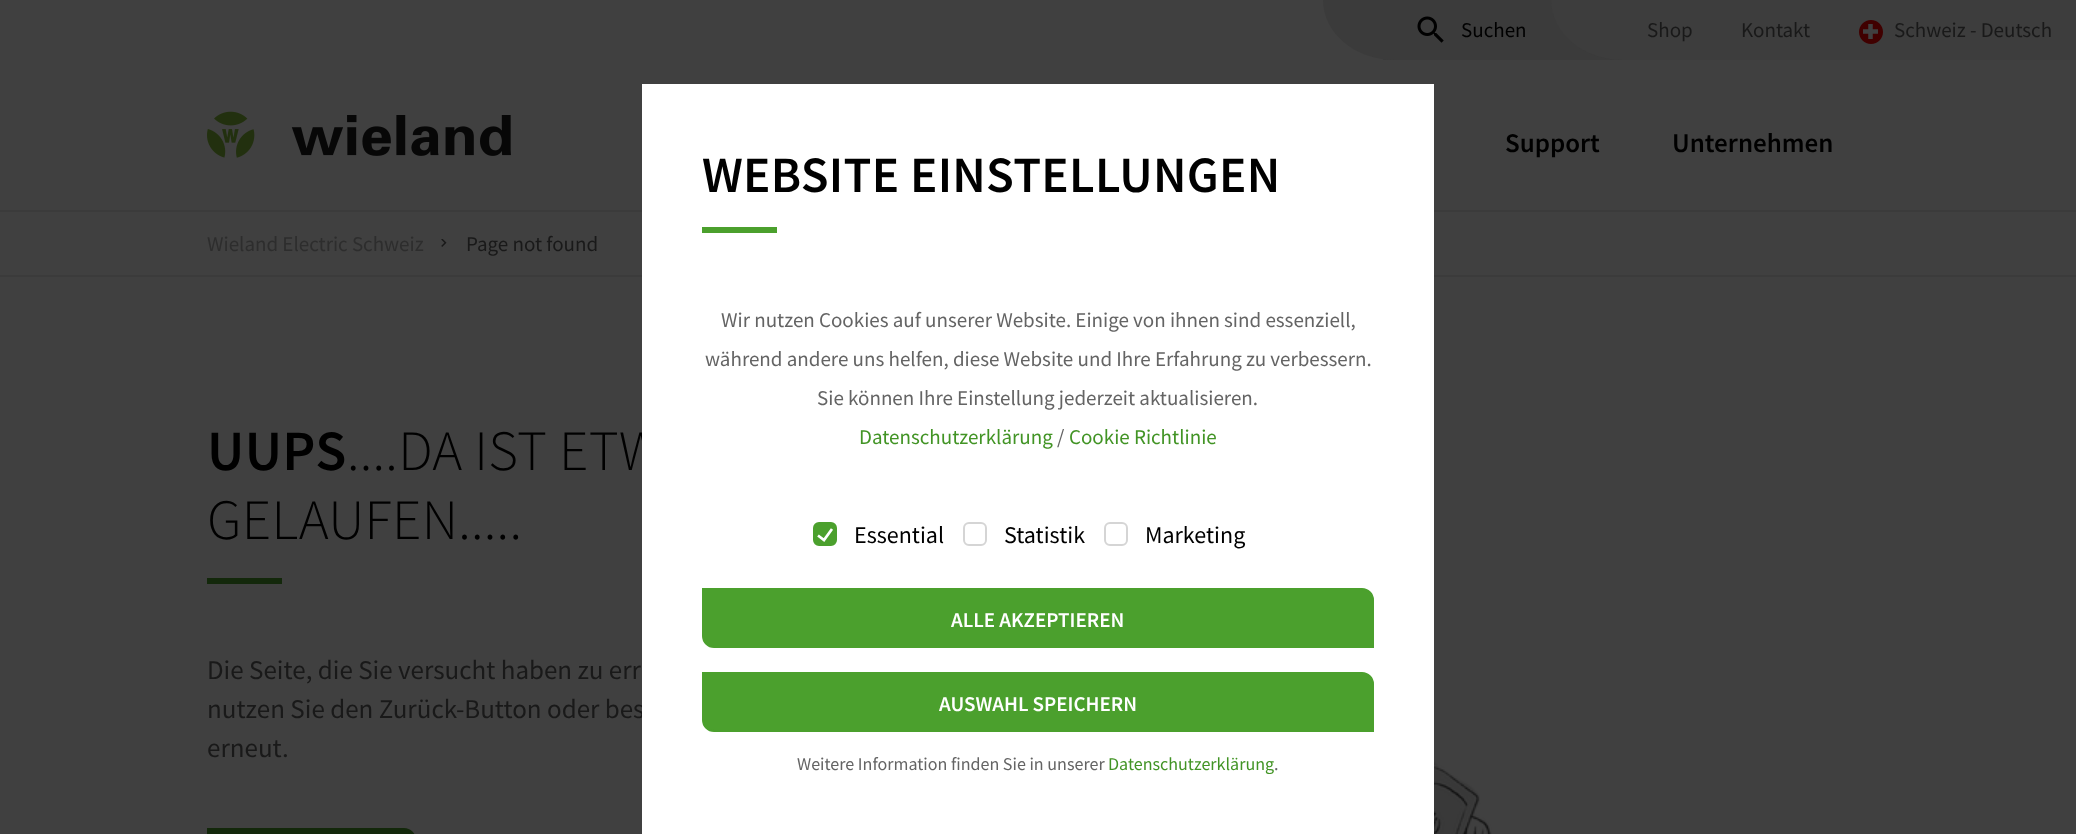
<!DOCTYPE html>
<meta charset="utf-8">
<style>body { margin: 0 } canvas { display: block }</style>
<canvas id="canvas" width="2076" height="834"></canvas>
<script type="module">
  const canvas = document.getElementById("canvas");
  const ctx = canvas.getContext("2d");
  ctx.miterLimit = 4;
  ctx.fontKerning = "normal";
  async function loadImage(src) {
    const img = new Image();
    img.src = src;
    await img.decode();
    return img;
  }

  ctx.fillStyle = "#404040";
  ctx.fillRect(0, 0, 2076, 834);
  ctx.fillStyle = "#3b3b3b";
  ctx.fillRect(0, 210, 2076, 2);
  ctx.fillStyle = "#3d3d3d";
  ctx.fillRect(1623, 0, 453, 60);
  ctx.fillStyle = "#3b3b3b";
  ctx.fillRect(1383, 0, 239, 60);
  ctx.beginPath();
  ctx.moveTo(1323, 0);
  ctx.lineTo(1395, 0);
  ctx.lineTo(1395, 60);
  ctx.bezierCurveTo(1355, 60, 1323, 33, 1323, 0);
  ctx.closePath();
  ctx.fill();
  ctx.drawImage(await loadImage("img1.png"), 1417, 16, 27, 27);
  ctx.font = "21px Source Sans Pro";
  ctx.fillStyle = "#000000";
  ctx.fillText("Suchen", 1461, 37);
  ctx.fillStyle = "#3d3d3d";
  ctx.beginPath();
  ctx.moveTo(1551, 0);
  ctx.lineTo(1623, 0);
  ctx.lineTo(1623, 60);
  ctx.bezierCurveTo(1583, 60, 1551, 33, 1551, 0);
  ctx.closePath();
  ctx.fill();
  ctx.fillStyle = "#191919";
  ctx.fillText("Shop", 1647, 37);
  ctx.fillText("Kontakt", 1741, 37);
  ctx.drawImage(await loadImage("img2.png"), 1859, 20, 24, 24);
  ctx.fillText("Schweiz - Deutsch", 1894, 37);
  ctx.drawImage(await loadImage("img3.png"), 207, 111, 304, 47);
  ctx.font = "600 27px Source Sans Pro";
  ctx.fillStyle = "#000000";
  ctx.fillText("Support", 1505, 152);
  ctx.fillText("Unternehmen", 1672, 152);
  ctx.fillStyle = "#3b3b3b";
  ctx.fillRect(0, 275, 2076, 2);
  ctx.font = "21px Source Sans Pro";
  ctx.fillStyle = "#2d2d2d";
  ctx.fillText("Wieland Electric Schweiz", 207, 251);
  ctx.drawImage(await loadImage("img4.png"), 441, 239, 6, 8);
  ctx.fillStyle = "#191919";
  ctx.fillText("Page not found", 466, 251);
  ctx.letterSpacing = "0.3px";
  ctx.font = "300 57px Source Sans Pro";
  ctx.fillStyle = "#000000";
  ctx.fillText("....DA IST ETW", 347, 470);
  ctx.letterSpacing = "0px";
  ctx.font = "27px Source Sans Pro";
  ctx.fillStyle = "#191919";
  ctx.fillText("nutzen Sie den Zurück-Button oder bes", 207, 718);
  ctx.fillStyle = "#ffffff";
  ctx.fillRect(642, 84, 792, 750);
  ctx.letterSpacing = "0.3px";
  ctx.font = "600 51px Source Sans Pro";
  ctx.fillStyle = "#000000";
  ctx.fillText("WEBSITE EINSTELLUNGEN", 702, 192);
  ctx.fillStyle = "#4ba02d";
  ctx.fillRect(702, 227, 75, 6);
  ctx.letterSpacing = "0px";
  ctx.font = "21px Source Sans Pro";
  ctx.fillStyle = "#646464";
  ctx.fillText("Wir nutzen Cookies auf unserer Website. Einige von ihnen sind essenziell,", 721, 327);
  ctx.fillText("während andere uns helfen, diese Website und Ihre Erfahrung zu verbessern.", 705, 366);
  ctx.fillText("Sie können Ihre Einstellung jederzeit aktualisieren.", 817, 405);
  ctx.fillStyle = "#429425";
  ctx.fillText("Datenschutzerklärung", 859, 444);
  ctx.fillStyle = "#646464";
  ctx.fillText("/", 1057, 444);
  ctx.fillStyle = "#429425";
  ctx.fillText("Cookie Richtlinie", 1069, 444);
  ctx.fillStyle = "#4ba02d";
  ctx.beginPath();
  ctx.roundRect(814, 523, 22, 22, 5);
  ctx.fill();
  ctx.strokeStyle = "#4ba02d";
  ctx.lineWidth = 2;
  ctx.stroke();
  ctx.font = "24px Source Sans Pro";
  ctx.fillStyle = "#000000";
  ctx.fillText("Essential", 854, 543);
  ctx.beginPath();
  ctx.moveTo(818, 535.5);
  ctx.lineTo(824, 540);
  ctx.lineTo(832, 529);
  ctx.strokeStyle = "#ffffff";
  ctx.lineWidth = 2.7;
  ctx.stroke();
  ctx.beginPath();
  ctx.roundRect(964, 523, 22, 22, 5);
  ctx.strokeStyle = "#d5d5d5";
  ctx.lineWidth = 2;
  ctx.stroke();
  ctx.fillText("Statistik", 1004, 543);
  ctx.beginPath();
  ctx.roundRect(1105, 523, 22, 22, 5);
  ctx.stroke();
  ctx.fillText("Marketing", 1145, 543);
  ctx.fillStyle = "#4ba02d";
  ctx.beginPath();
  ctx.roundRect(703, 589, 670, 58, [0, 11, 0, 11]);
  ctx.fill();
  ctx.strokeStyle = "#4ba02d";
  ctx.stroke();
  ctx.font = "600 21px Source Sans Pro";
  ctx.fillStyle = "#ffffff";
  ctx.fillText("ALLE AKZEPTIEREN", 951, 627);
  ctx.fillStyle = "#4ba02d";
  ctx.beginPath();
  ctx.roundRect(703, 673, 670, 58, [0, 11, 0, 11]);
  ctx.fill();
  ctx.stroke();
  ctx.fillStyle = "#ffffff";
  ctx.fillText("AUSWAHL SPEICHERN", 939, 711);
  ctx.font = "18px Source Sans Pro";
  ctx.fillStyle = "#646464";
  ctx.fillText("Weitere Information finden Sie in unserer", 797, 770);
  ctx.fillStyle = "#429425";
  ctx.fillText("Datenschutzerklärung", 1108, 770);
  ctx.fillStyle = "#646464";
  ctx.fillText(".", 1274, 770);
  ctx.letterSpacing = "0.3px";
  ctx.font = "600 57px Source Sans Pro";
  ctx.fillStyle = "#000000";
  ctx.fillText("UUPS", 207, 470);
  ctx.font = "300 57px Source Sans Pro";
  ctx.fillText("GELAUFEN.....", 207, 539);
  ctx.fillStyle = "#13280b";
  ctx.fillRect(207, 578, 75, 6);
  ctx.letterSpacing = "0px";
  ctx.font = "27px Source Sans Pro";
  ctx.fillStyle = "#191919";
  ctx.fillText("Die Seite, die Sie versucht haben zu err", 207, 679);
  ctx.fillText("erneut.", 207, 757);
  ctx.fillStyle = "#13280b";
  ctx.beginPath();
  ctx.moveTo(208, 829);
  ctx.lineTo(404, 829);
  ctx.bezierCurveTo(410, 829, 415, 834, 415, 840);
  ctx.lineTo(415, 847);
  ctx.lineTo(219, 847);
  ctx.bezierCurveTo(213, 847, 208, 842, 208, 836);
  ctx.closePath();
  ctx.fill();
  ctx.strokeStyle = "#13280b";
  ctx.stroke();
  ctx.drawImage(await loadImage("img5.png"), 1434, 592, 58, 242);
</script>
